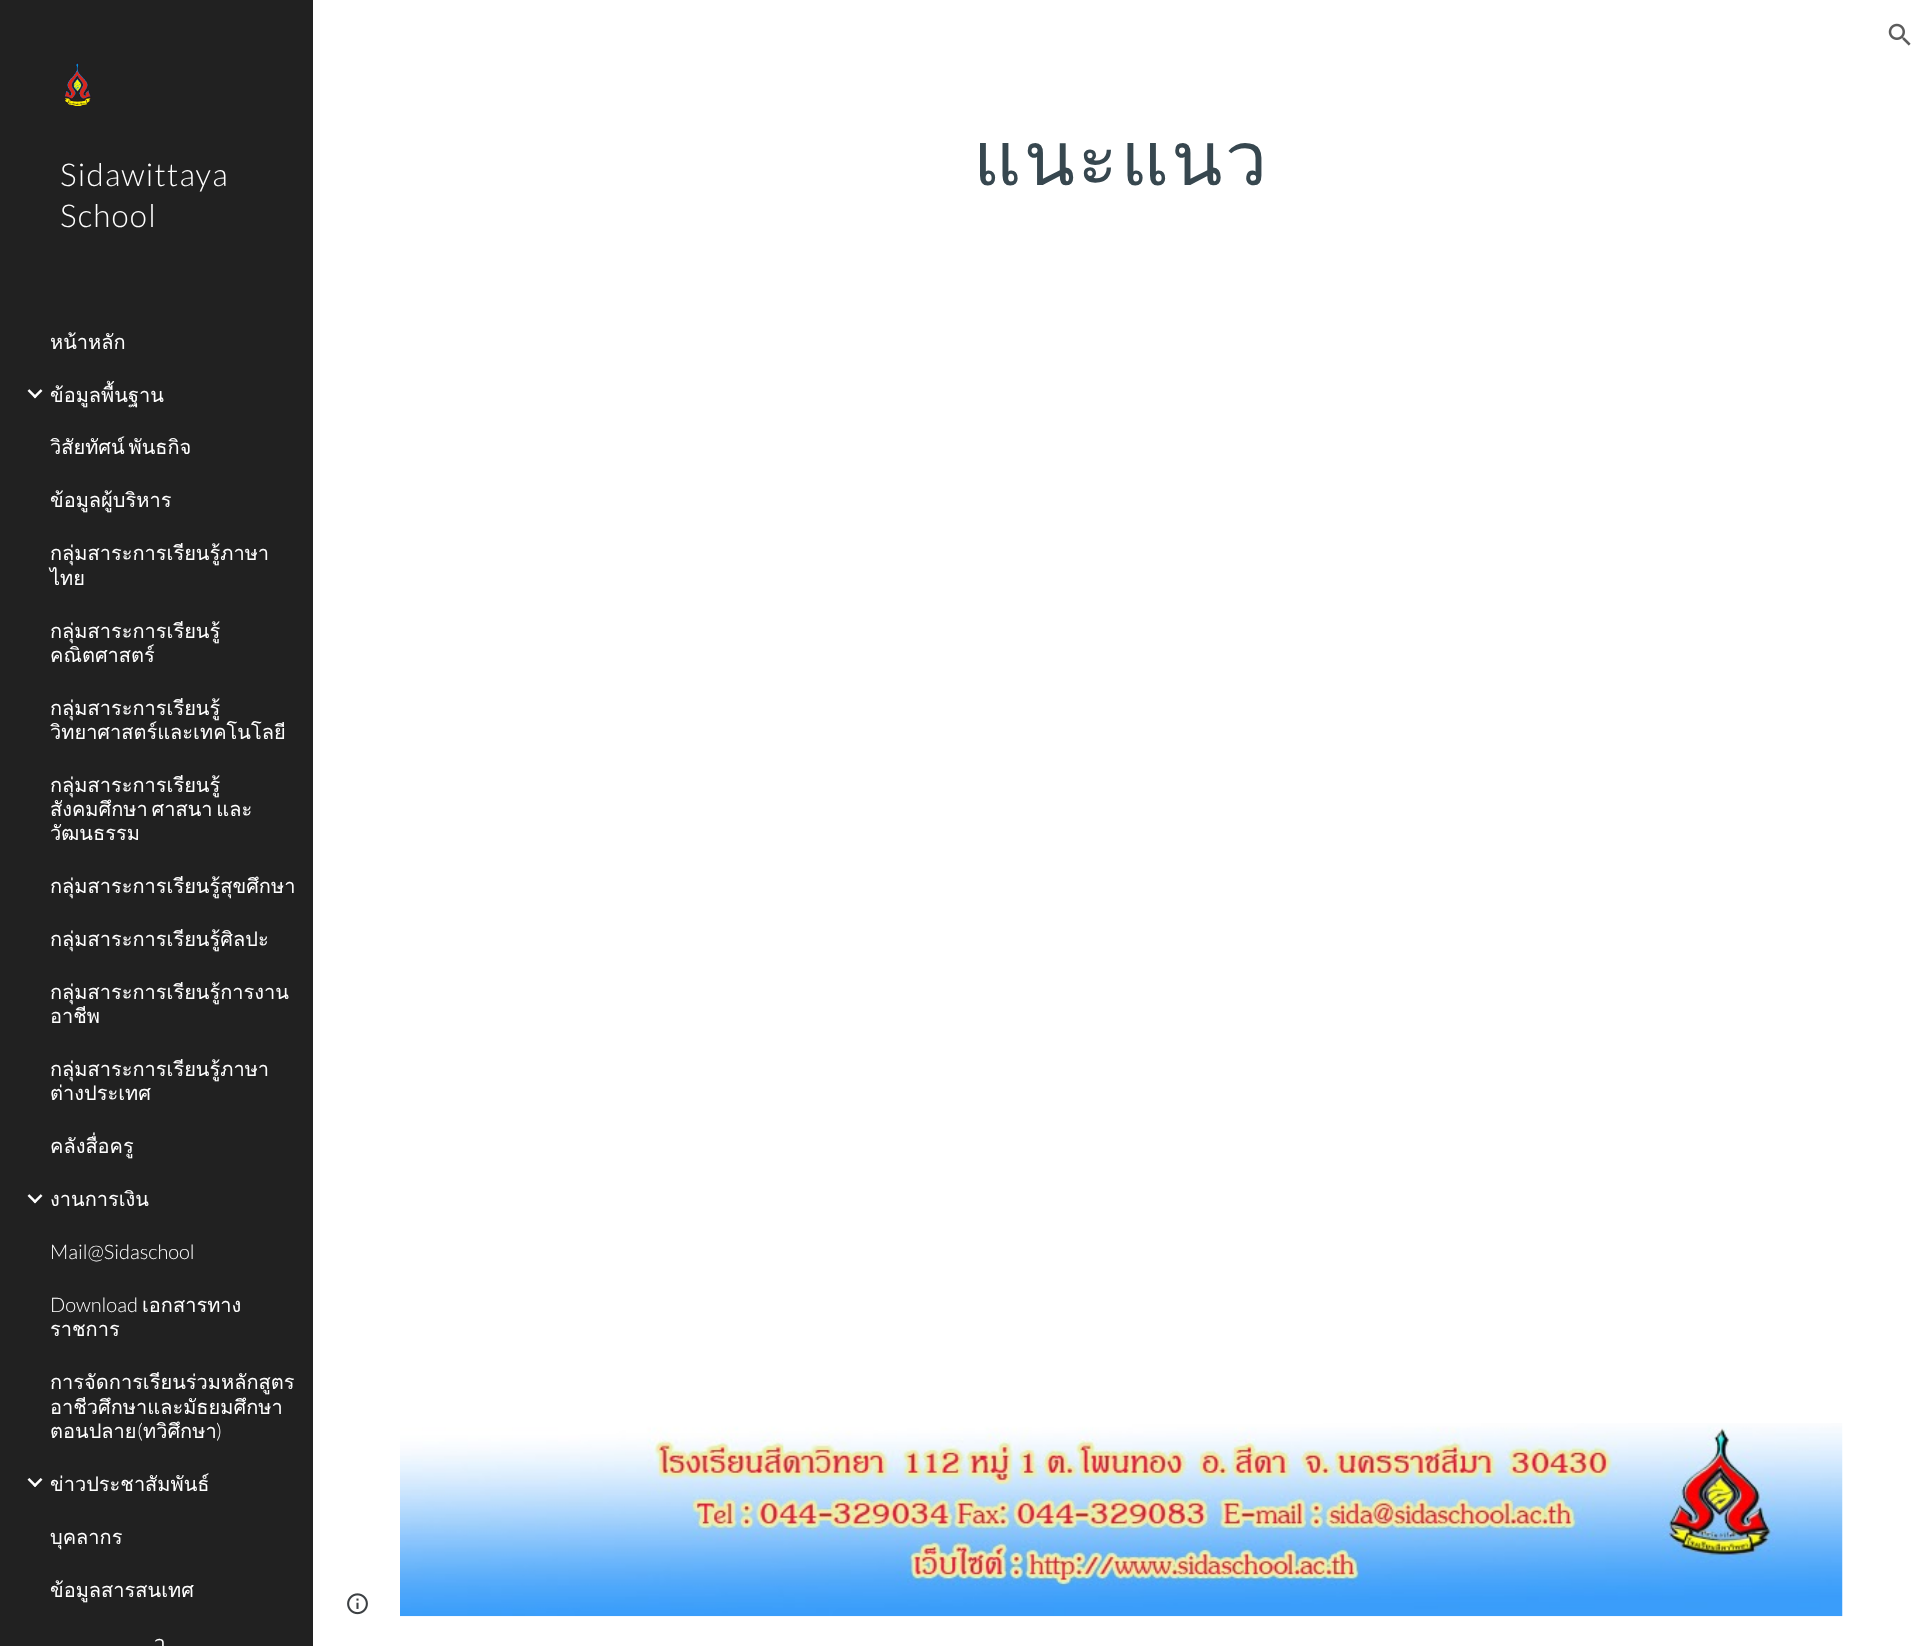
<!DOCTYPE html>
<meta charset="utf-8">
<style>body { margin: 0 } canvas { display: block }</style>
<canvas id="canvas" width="1930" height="1646"></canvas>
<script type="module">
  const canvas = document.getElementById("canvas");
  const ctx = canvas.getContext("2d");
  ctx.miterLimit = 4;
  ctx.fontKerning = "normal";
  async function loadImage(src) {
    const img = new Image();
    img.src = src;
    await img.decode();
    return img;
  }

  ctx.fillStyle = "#ffffff";
  ctx.fillRect(0, 0, 1930, 1646);
  ctx.drawImage(await loadImage("img1.png"), 1888, 23, 23, 23);
  ctx.fillStyle = "#212121";
  ctx.fillRect(0, 0, 313, 1646);
  ctx.drawImage(await loadImage("img2.png"), 64, 62, 28, 44);
  ctx.letterSpacing = "1.25px";
  ctx.font = "300 31.5px Lato";
  ctx.fillStyle = "#ffffff";
  ctx.fillText("Sidawittaya", 60, 186);
  ctx.fillText("School", 60, 227);
  ctx.letterSpacing = "0px";
  ctx.font = "20px Loma";
  ctx.fillText("หน้าหลัก", 50, 349);
  ctx.drawImage(await loadImage("img3.png"), 27, 389, 16, 10);
  ctx.save();
  ctx.beginPath();
  ctx.rect(45, 368, 253, 52);
  ctx.clip();
  ctx.fillText("ข้อมูลพื้นฐาน", 50, 402);
  ctx.restore();
  ctx.save();
  ctx.beginPath();
  ctx.rect(45, 420, 253, 53);
  ctx.clip();
  ctx.wordSpacing = "-3px";
  ctx.fillText("วิสัยทัศน์ พันธกิจ", 50, 454);
  ctx.restore();
  ctx.save();
  ctx.beginPath();
  ctx.rect(45, 473, 253, 53);
  ctx.clip();
  ctx.fillText("ข้อมูลผู้บริหาร", 50, 507);
  ctx.restore();
  ctx.fillText("กลุ่มสาระการเรียนรู้ภาษา", 50, 560);
  ctx.fillText("ไทย", 50, 585);
  ctx.fillText("กลุ่มสาระการเรียนรู้", 50, 638);
  ctx.fillText("คณิตศาสตร์", 50, 662);
  ctx.fillText("กลุ่มสาระการเรียนรู้", 50, 715);
  ctx.save();
  ctx.beginPath();
  ctx.rect(45, 680, 253, 78);
  ctx.clip();
  ctx.fillText("วิทยาศาสตร์และเทคโนโลยี", 50, 739);
  ctx.restore();
  ctx.fillText("กลุ่มสาระการเรียนรู้", 50, 792);
  ctx.save();
  ctx.beginPath();
  ctx.rect(45, 758, 253, 101);
  ctx.clip();
  ctx.wordSpacing = "-3px";
  ctx.fillText("สังคมศึกษา ศาสนา และ", 50, 816);
  ctx.wordSpacing = "0px";
  ctx.fillText("วัฒนธรรม", 50, 840);
  ctx.restore();
  ctx.fillText("กลุ่มสาระการเรียนรู้สุขศึกษา", 50, 893);
  ctx.fillText("กลุ่มสาระการเรียนรู้ศิลปะ", 50, 946);
  ctx.fillText("กลุ่มสาระการเรียนรู้การงาน", 50, 999);
  ctx.fillText("อาชีพ", 50, 1023);
  ctx.fillText("กลุ่มสาระการเรียนรู้ภาษา", 50, 1076);
  ctx.fillText("ต่างประเทศ", 50, 1100);
  ctx.fillText("คลังสื่อครู", 50, 1153);
  ctx.drawImage(await loadImage("img3.png"), 27, 1194, 16, 10);
  ctx.fillText("งานการเงิน", 50, 1206);
  ctx.font = "300 20px Lato";
  ctx.fillText("Mail@Sidaschool", 50, 1259);
  ctx.fillText("Download", 50, 1312);
  ctx.font = "20px Loma";
  ctx.fillText("เอกสารทาง", 142, 1312);
  ctx.fillText("ราชการ", 50, 1336);
  ctx.fillText("การจัดการเรียนร่วมหลักสูตร", 50, 1389);
  ctx.fillText("อาชีวศึกษาและมัธยมศึกษา", 50, 1414);
  ctx.fillText("ตอนปลาย", 50, 1438);
  ctx.font = "300 20px Lato";
  ctx.fillText("(", 137, 1438);
  ctx.font = "20px Loma";
  ctx.fillText("ทวิศึกษา", 143, 1438);
  ctx.font = "300 20px Lato";
  ctx.fillText(")", 216, 1438);
  ctx.drawImage(await loadImage("img4.png"), 27, 1478, 16, 9);
  ctx.font = "20px Loma";
  ctx.fillText("ข่าวประชาสัมพันธ์", 50, 1491);
  ctx.fillText("บุคลากร", 50, 1544);
  ctx.save();
  ctx.beginPath();
  ctx.rect(45, 1563, 253, 52);
  ctx.clip();
  ctx.fillText("ข้อมูลสารสนเทศ", 50, 1597);
  ctx.restore();
  ctx.fillText("ว", 154, 1650);
  ctx.letterSpacing = "2.5px";
  ctx.font = "75px Loma";
  ctx.fillStyle = "#37474f";
  ctx.fillText("แนะแนว", 973, 185);
  ctx.drawImage(await loadImage("img5.png"), 347, 1593, 21, 22);
  ctx.drawImage(await loadImage("img6.png"), 400, 1423, 1443, 194);
</script>
